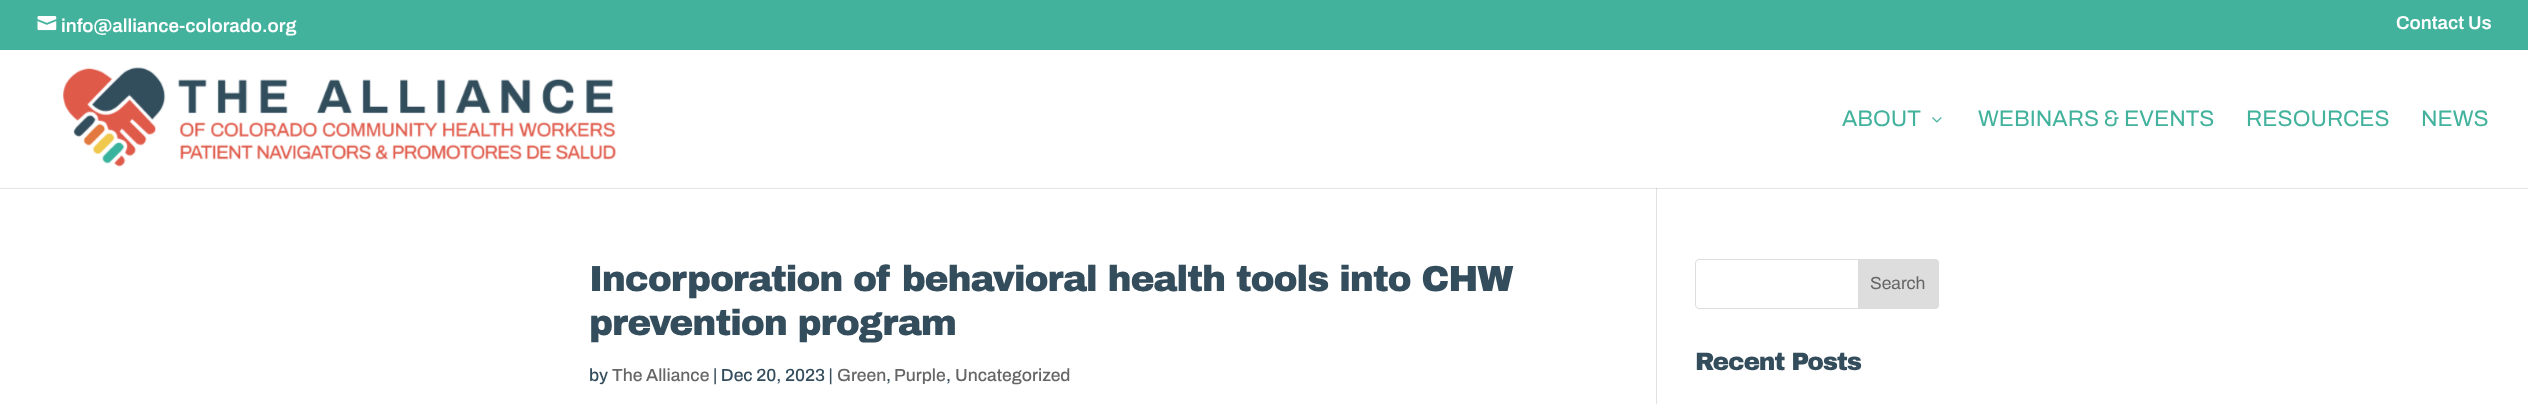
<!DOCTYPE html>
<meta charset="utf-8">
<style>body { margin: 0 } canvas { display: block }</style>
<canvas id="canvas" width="2528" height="404"></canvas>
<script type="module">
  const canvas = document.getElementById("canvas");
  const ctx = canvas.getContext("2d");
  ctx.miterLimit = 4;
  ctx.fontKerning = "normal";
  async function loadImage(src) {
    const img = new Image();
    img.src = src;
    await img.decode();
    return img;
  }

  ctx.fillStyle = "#ffffff";
  ctx.fillRect(0, 0, 2528, 404);
  ctx.fillStyle = "#43b29d";
  ctx.fillRect(0, 0, 2528, 50);
  ctx.drawImage(await loadImage("img1.png"), 37, 16, 20, 15);
  ctx.font = "600 18.75px 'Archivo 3'";
  ctx.fillStyle = "#ffffff";
  ctx.fillText("info@alliance-colorado.org", 61, 32);
  ctx.fillText("Contact Us", 2396, 29);
  ctx.fillStyle = "#e2e2e2";
  ctx.fillRect(1656, 186, 1, 218);
  ctx.fillStyle = "rgba(0, 0, 0, 0.1)";
  ctx.beginPath();
  ctx.moveTo(0, 188);
  ctx.lineTo(0, 189);
  ctx.lineTo(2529, 189);
  ctx.lineTo(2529, 51);
  ctx.lineTo(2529, 188);
  ctx.closePath();
  ctx.fill();
  ctx.fillStyle = "#ffffff";
  ctx.fillRect(1656, 186, 1, 2);
  ctx.drawImage(await loadImage("img2.png"), 63, 67, 554, 100);
  ctx.font = "600 22.5px 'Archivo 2'";
  ctx.fillStyle = "#43b29d";
  ctx.fillText("ABOUT", 1842, 126);
  ctx.drawImage(await loadImage("img3.png"), 1932, 117, 10, 6);
  ctx.fillText("WEBINARS & EVENTS", 1978, 126);
  ctx.fillText("RESOURCES", 2246, 126);
  ctx.fillText("NEWS", 2421, 126);
  ctx.letterSpacing = "-1.25px";
  ctx.font = "900 36.25px Archivo Black";
  ctx.fillStyle = "#344d5c";
  ctx.fillText("Incorporation of behavioral health tools into CHW", 589, 291);
  ctx.fillText("prevention program", 589, 335);
  ctx.letterSpacing = "0px";
  ctx.font = "600 17.5px Archivo";
  ctx.fillText("by", 589, 381);
  ctx.fillStyle = "#666666";
  ctx.fillText("The Alliance", 612, 381);
  ctx.fillStyle = "#344d5c";
  ctx.fillText("| Dec 20, 2023 |", 713, 381);
  ctx.fillStyle = "#666666";
  ctx.fillText("Green", 837, 381);
  ctx.fillStyle = "#344d5c";
  ctx.fillText(",", 886, 381);
  ctx.fillStyle = "#666666";
  ctx.fillText("Purple", 894, 381);
  ctx.fillStyle = "#344d5c";
  ctx.fillText(",", 946, 381);
  ctx.fillStyle = "#666666";
  ctx.fillText("Uncategorized", 955, 381);
  ctx.beginPath();
  ctx.roundRect(1695.5, 259.5, 243, 49, 3.5);
  ctx.strokeStyle = "#dddddd";
  ctx.stroke();
  ctx.fillStyle = "#dddddd";
  ctx.beginPath();
  ctx.roundRect(1858.5, 259.5, 80, 49, [0, 3.5, 3.5, 0]);
  ctx.fill();
  ctx.stroke();
  ctx.font = "600 17.5px 'Archivo 2'";
  ctx.fillStyle = "#666666";
  ctx.fillText("Search", 1870, 289);
  ctx.letterSpacing = "-1.25px";
  ctx.font = "900 25px Archivo Black";
  ctx.fillStyle = "#344d5c";
  ctx.fillText("Recent Posts", 1695, 370);
</script>
